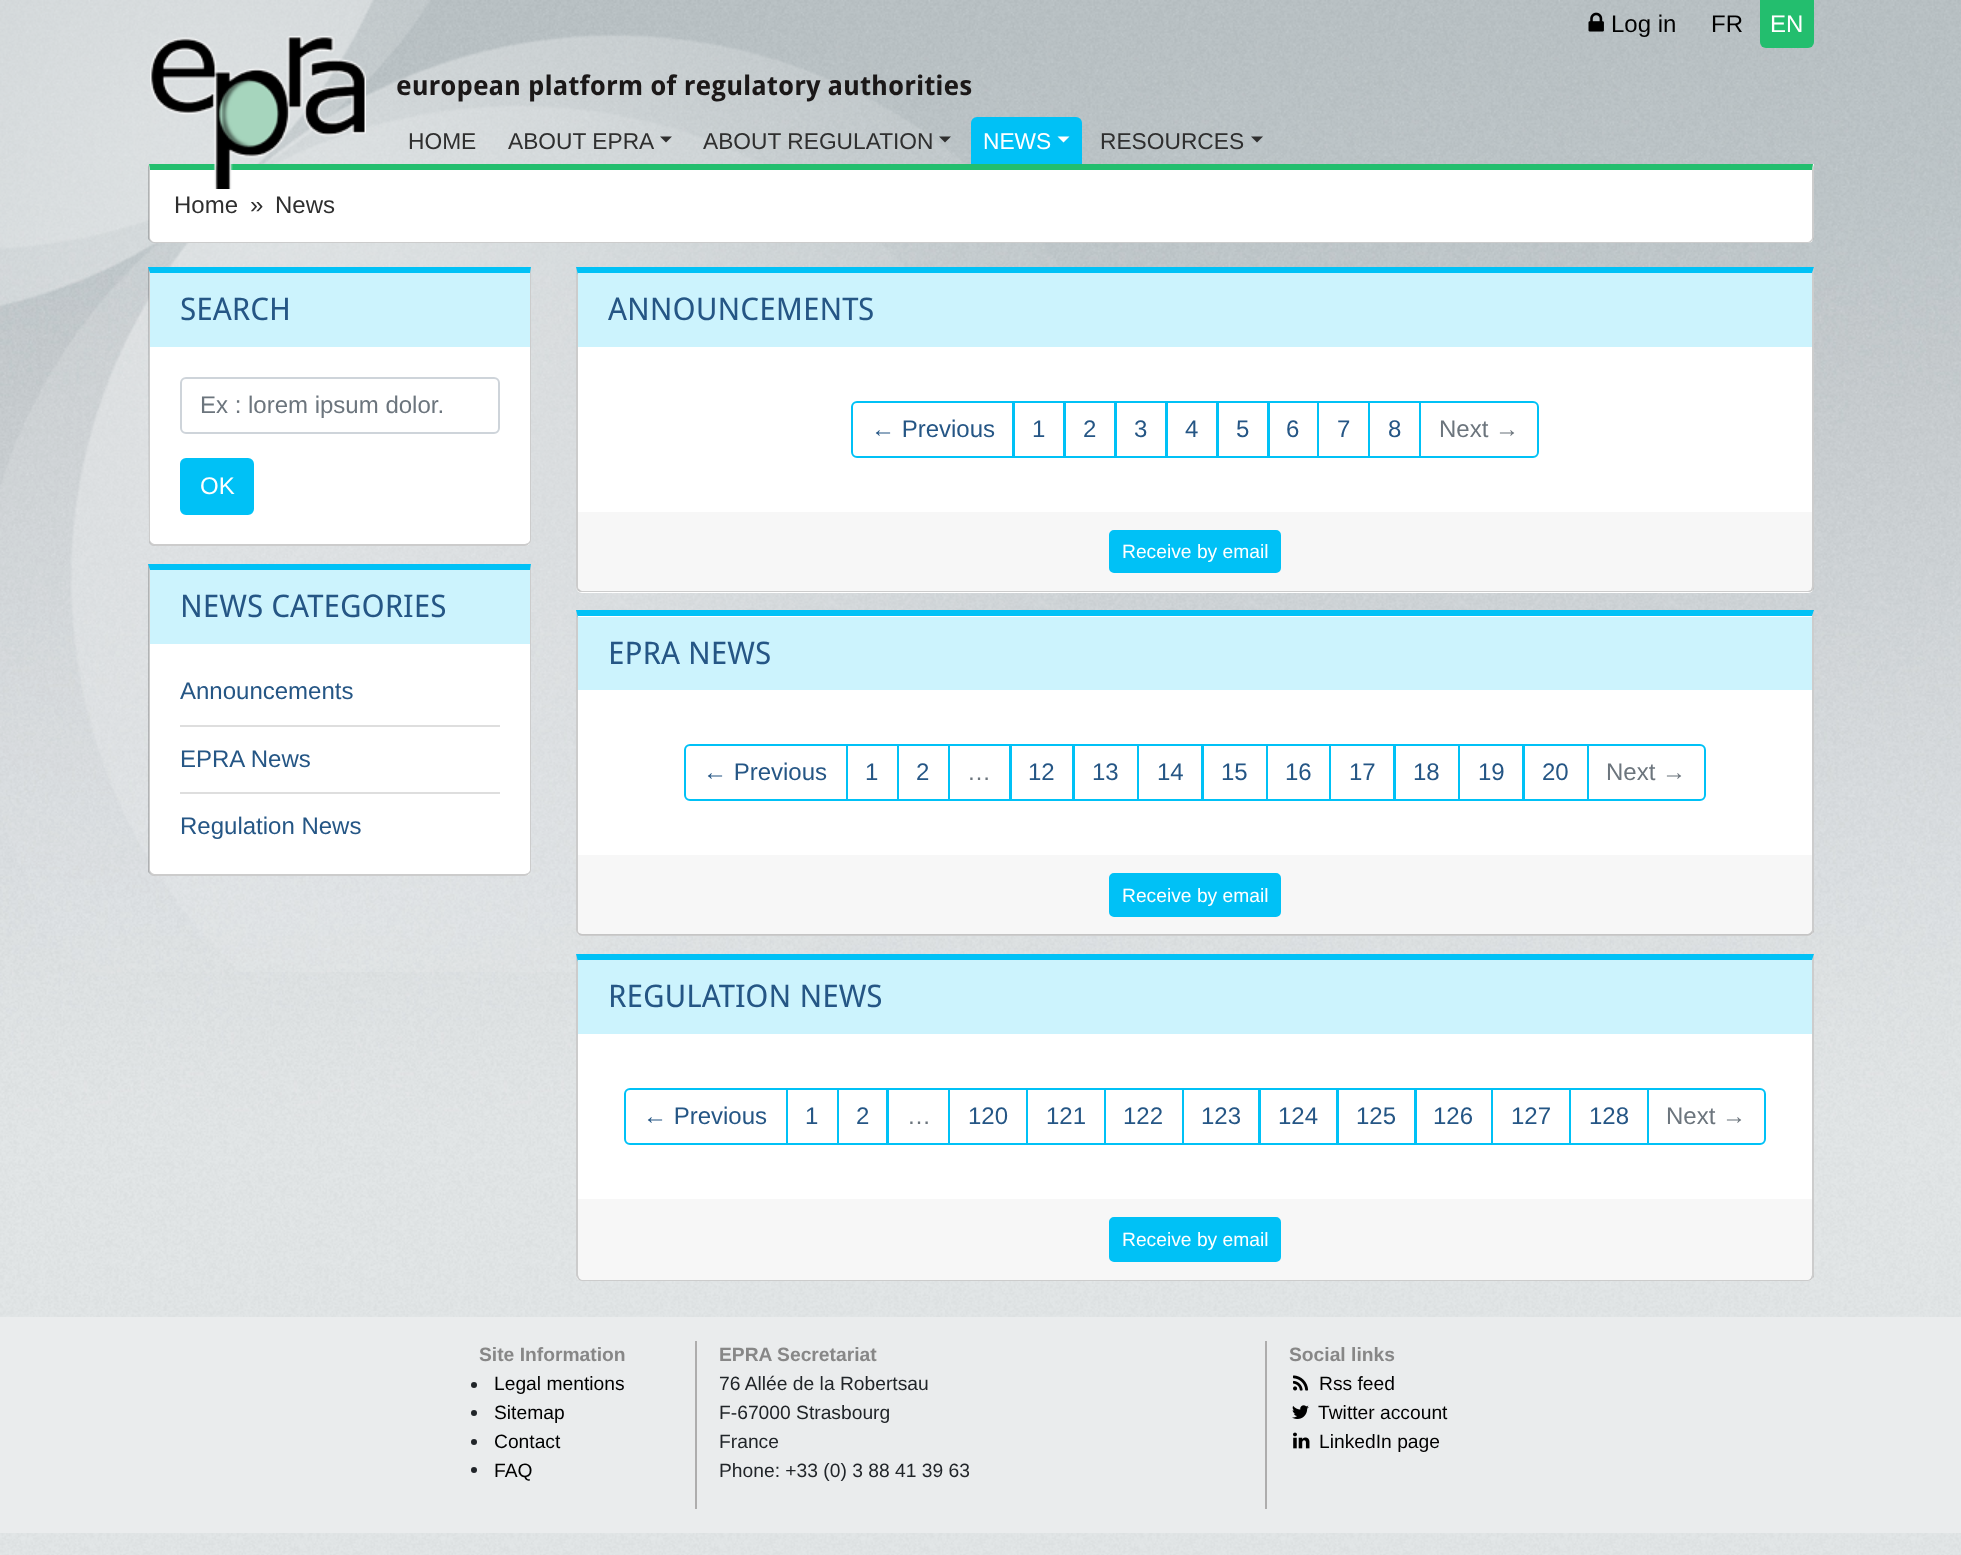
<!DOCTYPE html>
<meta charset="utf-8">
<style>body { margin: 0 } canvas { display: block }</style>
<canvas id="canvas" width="1961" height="1555"></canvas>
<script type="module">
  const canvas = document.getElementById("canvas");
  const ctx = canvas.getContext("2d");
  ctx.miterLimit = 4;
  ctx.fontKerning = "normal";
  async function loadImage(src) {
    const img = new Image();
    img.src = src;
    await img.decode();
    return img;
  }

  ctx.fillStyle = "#ffffff";
  ctx.fillRect(0, 0, 1961, 1555);
  ctx.drawImage(await loadImage("img1.png"), 0, 0, 1961, 1555);
  ctx.drawImage(await loadImage("img2.png"), 1588, 12, 16, 20);
  ctx.font = "24px Liberation Sans";
  ctx.fillStyle = "#000000";
  ctx.fillText("Log in", 1611, 32);
  ctx.fillText("FR", 1711, 32);
  ctx.fillStyle = "#23be6e";
  ctx.beginPath();
  ctx.roundRect(1760, 0, 54, 48, [0, 0, 6, 6]);
  ctx.fill();
  ctx.fillStyle = "#ffffff";
  ctx.fillText("EN", 1770, 32);
  ctx.drawImage(await loadImage("img3.png"), 0, 0, 1060, 972);
  ctx.beginPath();
  ctx.roundRect(149, 164, 1665, 79, [0, 0, 6, 6]);
  ctx.fill();
  ctx.fillStyle = "#23be6e";
  ctx.beginPath();
  ctx.moveTo(1813, 164);
  ctx.lineTo(149, 164);
  ctx.lineTo(150, 170);
  ctx.lineTo(1812, 170);
  ctx.closePath();
  ctx.fill();
  ctx.fillStyle = "rgba(0, 0, 0, 0.2)";
  ctx.beginPath();
  ctx.moveTo(1814, 239);
  ctx.lineTo(1812, 241);
  ctx.lineTo(1811, 240);
  ctx.bezierCurveTo(1812, 239, 1812, 238, 1812, 237);
  ctx.lineTo(1812, 170);
  ctx.lineTo(1814, 164);
  ctx.closePath();
  ctx.fill();
  ctx.beginPath();
  ctx.moveTo(154, 243);
  ctx.lineTo(1808, 243);
  ctx.bezierCurveTo(1809, 243, 1811, 242, 1812, 241);
  ctx.lineTo(1811, 240);
  ctx.bezierCurveTo(1810, 241, 1809, 242, 1808, 242);
  ctx.lineTo(154, 242);
  ctx.bezierCurveTo(153, 242, 152, 241, 151, 240);
  ctx.lineTo(150, 241);
  ctx.bezierCurveTo(151, 242, 153, 243, 154, 243);
  ctx.closePath();
  ctx.fill();
  ctx.beginPath();
  ctx.moveTo(150, 170);
  ctx.lineTo(150, 237);
  ctx.bezierCurveTo(150, 238, 150, 239, 151, 240);
  ctx.lineTo(150, 241);
  ctx.lineTo(148, 239);
  ctx.lineTo(148, 164);
  ctx.closePath();
  ctx.fill();
  ctx.drawImage(await loadImage("img4.png"), 150, 35, 216, 154);
  ctx.font = "bold 27px Droid Sans";
  ctx.fillStyle = "#1b1818";
  ctx.fillText("european platform of regulatory authorities", 396, 95);
  ctx.font = "22.75px Liberation Sans";
  ctx.fillStyle = "#2f2f2f";
  ctx.fillText("HOME", 408, 149);
  ctx.fillText("ABOUT EPRA", 508, 149);
  ctx.beginPath();
  ctx.moveTo(660, 136.5);
  ctx.lineTo(672, 136.5);
  ctx.lineTo(666, 142.5);
  ctx.closePath();
  ctx.fill();
  ctx.fillText("ABOUT REGULATION", 703, 149);
  ctx.beginPath();
  ctx.moveTo(939, 136.5);
  ctx.lineTo(951, 136.5);
  ctx.lineTo(945, 142.5);
  ctx.closePath();
  ctx.fill();
  ctx.fillStyle = "#00c1f6";
  ctx.beginPath();
  ctx.roundRect(971, 117, 111, 47, [6, 6, 0, 0]);
  ctx.fill();
  ctx.fillStyle = "#ffffff";
  ctx.fillText("NEWS", 983, 149);
  ctx.beginPath();
  ctx.moveTo(1057.5, 136.5);
  ctx.lineTo(1069.5, 136.5);
  ctx.lineTo(1063.5, 142.5);
  ctx.closePath();
  ctx.fill();
  ctx.fillStyle = "#2f2f2f";
  ctx.fillText("RESOURCES", 1100, 149);
  ctx.beginPath();
  ctx.moveTo(1251, 136.5);
  ctx.lineTo(1263, 136.5);
  ctx.lineTo(1257, 142.5);
  ctx.closePath();
  ctx.fill();
  ctx.font = "24px Liberation Sans";
  ctx.fillText("Home", 174, 213);
  ctx.fillText("»", 250, 213);
  ctx.fillText("News", 275, 213);
  ctx.fillStyle = "#ffffff";
  ctx.beginPath();
  ctx.roundRect(149, 267, 382, 279, [0, 0, 6, 6]);
  ctx.fill();
  ctx.fillStyle = "#00c1f6";
  ctx.beginPath();
  ctx.moveTo(150, 273);
  ctx.lineTo(530, 273);
  ctx.lineTo(531, 267);
  ctx.lineTo(148, 267);
  ctx.closePath();
  ctx.fill();
  ctx.fillStyle = "rgba(0, 0, 0, 0.2)";
  ctx.beginPath();
  ctx.moveTo(531, 267);
  ctx.lineTo(530, 273);
  ctx.lineTo(530, 540);
  ctx.bezierCurveTo(530, 541, 529, 542, 528, 543);
  ctx.lineTo(529, 544);
  ctx.bezierCurveTo(530, 543, 531, 542, 531, 540);
  ctx.closePath();
  ctx.fill();
  ctx.beginPath();
  ctx.moveTo(154, 546);
  ctx.lineTo(525, 546);
  ctx.bezierCurveTo(526, 546, 528, 545, 529, 544);
  ctx.lineTo(528, 543);
  ctx.lineTo(525, 544);
  ctx.lineTo(154, 544);
  ctx.lineTo(152, 543);
  ctx.lineTo(150, 544);
  ctx.bezierCurveTo(151, 545, 153, 546, 154, 546);
  ctx.closePath();
  ctx.fill();
  ctx.beginPath();
  ctx.moveTo(150, 273);
  ctx.lineTo(150, 540);
  ctx.bezierCurveTo(150, 541, 151, 542, 152, 543);
  ctx.lineTo(150, 544);
  ctx.lineTo(149, 542);
  ctx.lineTo(148, 267);
  ctx.closePath();
  ctx.fill();
  ctx.fillStyle = "#ccf3fd";
  ctx.fillRect(150, 273, 380, 74);
  ctx.font = "31.25px Droid Sans";
  ctx.fillStyle = "#255685";
  ctx.fillText("SEARCH", 180, 320);
  ctx.beginPath();
  ctx.roundRect(181, 378, 318, 55, 5);
  ctx.strokeStyle = "#ced4da";
  ctx.lineWidth = 2;
  ctx.stroke();
  ctx.font = "24px Liberation Sans";
  ctx.fillStyle = "#6c757d";
  ctx.fillText("Ex : lorem ipsum dolor.", 200, 413);
  ctx.fillStyle = "#00c1f6";
  ctx.beginPath();
  ctx.roundRect(181, 459, 72, 55, 5);
  ctx.fill();
  ctx.strokeStyle = "#00c1f6";
  ctx.stroke();
  ctx.fillStyle = "#ffffff";
  ctx.fillText("OK", 200, 494);
  ctx.beginPath();
  ctx.roundRect(149, 564, 382, 312, [0, 0, 6, 6]);
  ctx.fill();
  ctx.fillStyle = "#00c1f6";
  ctx.beginPath();
  ctx.moveTo(150, 570);
  ctx.lineTo(530, 570);
  ctx.lineTo(531, 564);
  ctx.lineTo(148, 564);
  ctx.closePath();
  ctx.fill();
  ctx.fillStyle = "rgba(0, 0, 0, 0.2)";
  ctx.beginPath();
  ctx.moveTo(531, 564);
  ctx.lineTo(530, 570);
  ctx.lineTo(530, 870);
  ctx.bezierCurveTo(530, 871, 529, 872, 528, 873);
  ctx.lineTo(529, 874);
  ctx.bezierCurveTo(530, 873, 531, 872, 531, 870);
  ctx.closePath();
  ctx.fill();
  ctx.beginPath();
  ctx.moveTo(154, 876);
  ctx.lineTo(525, 876);
  ctx.bezierCurveTo(526, 876, 528, 875, 529, 874);
  ctx.lineTo(528, 873);
  ctx.lineTo(525, 874);
  ctx.lineTo(154, 874);
  ctx.lineTo(152, 873);
  ctx.lineTo(150, 874);
  ctx.bezierCurveTo(151, 875, 153, 876, 154, 876);
  ctx.closePath();
  ctx.fill();
  ctx.beginPath();
  ctx.moveTo(150, 570);
  ctx.lineTo(150, 870);
  ctx.bezierCurveTo(150, 871, 151, 872, 152, 873);
  ctx.lineTo(150, 874);
  ctx.lineTo(148, 872);
  ctx.lineTo(148, 564);
  ctx.closePath();
  ctx.fill();
  ctx.fillStyle = "#ccf3fd";
  ctx.fillRect(150, 570, 380, 74);
  ctx.font = "31.25px Droid Sans";
  ctx.fillStyle = "#255685";
  ctx.fillText("NEWS CATEGORIES", 180, 617);
  ctx.font = "24px Liberation Sans";
  ctx.fillText("Announcements", 180, 699);
  ctx.fillStyle = "#dedede";
  ctx.fillRect(180, 725, 320, 2);
  ctx.fillStyle = "#255685";
  ctx.fillText("EPRA News", 180, 767);
  ctx.fillStyle = "#dedede";
  ctx.fillRect(180, 792, 320, 2);
  ctx.fillStyle = "#255685";
  ctx.fillText("Regulation News", 180, 834);
  ctx.fillStyle = "#ffffff";
  ctx.beginPath();
  ctx.roundRect(576, 267, 1238, 326, [0, 0, 6, 6]);
  ctx.fill();
  ctx.fillStyle = "#00c1f6";
  ctx.beginPath();
  ctx.moveTo(576, 267);
  ctx.lineTo(578, 275);
  ctx.lineTo(578, 273);
  ctx.lineTo(1812, 273);
  ctx.lineTo(1814, 267);
  ctx.closePath();
  ctx.fill();
  ctx.fillStyle = "rgba(0, 0, 0, 0.2)";
  ctx.beginPath();
  ctx.moveTo(1814, 267);
  ctx.lineTo(1814, 589);
  ctx.lineTo(1812, 591);
  ctx.lineTo(1811, 590);
  ctx.bezierCurveTo(1811, 589, 1812, 588, 1812, 586);
  ctx.lineTo(1812, 273);
  ctx.closePath();
  ctx.fill();
  ctx.beginPath();
  ctx.moveTo(1812, 591);
  ctx.bezierCurveTo(1811, 592, 1809, 592, 1808, 592);
  ctx.lineTo(582, 592);
  ctx.bezierCurveTo(581, 592, 579, 592, 578, 591);
  ctx.lineTo(579, 589);
  ctx.bezierCurveTo(580, 590, 581, 591, 582, 591);
  ctx.lineTo(1808, 591);
  ctx.lineTo(1811, 590);
  ctx.closePath();
  ctx.fill();
  ctx.beginPath();
  ctx.moveTo(576, 267);
  ctx.lineTo(576, 586);
  ctx.bezierCurveTo(576, 588, 577, 590, 578, 591);
  ctx.lineTo(579, 589);
  ctx.bezierCurveTo(578, 589, 578, 587, 578, 586);
  ctx.lineTo(578, 275);
  ctx.closePath();
  ctx.fill();
  ctx.fillStyle = "#ccf3fd";
  ctx.fillRect(578, 273, 1234, 74);
  ctx.font = "31.25px Droid Sans";
  ctx.fillStyle = "#255685";
  ctx.fillText("ANNOUNCEMENTS", 608, 320);
  ctx.beginPath();
  ctx.roundRect(852, 402, 161, 55, [5, 0, 0, 5]);
  ctx.stroke();
  ctx.font = "24px Liberation Sans";
  ctx.fillText("← Previous", 871, 437);
  ctx.strokeRect(1014, 402, 50, 55);
  ctx.fillText("1", 1032, 437);
  ctx.strokeRect(1065, 402, 50, 55);
  ctx.fillText("2", 1083, 437);
  ctx.strokeRect(1116, 402, 50, 55);
  ctx.fillText("3", 1134, 437);
  ctx.strokeRect(1167, 402, 50, 55);
  ctx.fillText("4", 1185, 437);
  ctx.strokeRect(1218, 402, 50, 55);
  ctx.fillText("5", 1236, 437);
  ctx.strokeRect(1269, 402, 49, 55);
  ctx.fillText("6", 1286, 437);
  ctx.strokeRect(1318, 402, 51, 55);
  ctx.fillText("7", 1337, 437);
  ctx.strokeRect(1369, 402, 51, 55);
  ctx.fillText("8", 1388, 437);
  ctx.fillStyle = "#ffffff";
  ctx.beginPath();
  ctx.roundRect(1420, 402, 118, 55, [0, 5, 5, 0]);
  ctx.fill();
  ctx.stroke();
  ctx.fillStyle = "#6c757d";
  ctx.fillText("Next →", 1439, 437);
  ctx.fillStyle = "rgba(0, 0, 0, 0.03)";
  ctx.fillRect(578, 512, 1234, 79);
  ctx.fillStyle = "#00c1f6";
  ctx.beginPath();
  ctx.roundRect(1110, 531, 170, 41, 4);
  ctx.fill();
  ctx.stroke();
  ctx.font = "19.25px Liberation Sans";
  ctx.fillStyle = "#ffffff";
  ctx.fillText("Receive by email", 1122, 558);
  ctx.beginPath();
  ctx.roundRect(576, 611, 1238, 325, [0, 0, 6, 6]);
  ctx.fill();
  ctx.fillStyle = "#00c1f6";
  ctx.beginPath();
  ctx.moveTo(578, 616);
  ctx.lineTo(1812, 616);
  ctx.lineTo(1814, 610);
  ctx.lineTo(576, 610);
  ctx.lineTo(578, 618);
  ctx.closePath();
  ctx.fill();
  ctx.fillStyle = "rgba(0, 0, 0, 0.2)";
  ctx.beginPath();
  ctx.moveTo(1814, 610);
  ctx.lineTo(1814, 932);
  ctx.lineTo(1812, 934);
  ctx.lineTo(1810, 933);
  ctx.bezierCurveTo(1811, 932, 1812, 931, 1812, 930);
  ctx.lineTo(1812, 616);
  ctx.closePath();
  ctx.fill();
  ctx.beginPath();
  ctx.moveTo(582, 936);
  ctx.lineTo(1808, 936);
  ctx.bezierCurveTo(1809, 936, 1811, 935, 1812, 934);
  ctx.lineTo(1810, 933);
  ctx.lineTo(1808, 934);
  ctx.lineTo(582, 934);
  ctx.lineTo(579, 933);
  ctx.lineTo(578, 934);
  ctx.bezierCurveTo(579, 935, 580, 936, 582, 936);
  ctx.closePath();
  ctx.fill();
  ctx.beginPath();
  ctx.moveTo(576, 610);
  ctx.lineTo(576, 930);
  ctx.bezierCurveTo(576, 932, 577, 933, 578, 934);
  ctx.lineTo(579, 933);
  ctx.bezierCurveTo(578, 932, 578, 931, 578, 930);
  ctx.lineTo(578, 618);
  ctx.closePath();
  ctx.fill();
  ctx.fillStyle = "#ccf3fd";
  ctx.fillRect(578, 617, 1234, 73);
  ctx.font = "31.25px Droid Sans";
  ctx.fillStyle = "#255685";
  ctx.fillText("EPRA NEWS", 608, 664);
  ctx.beginPath();
  ctx.roundRect(685, 745, 162, 55, [5, 0, 0, 5]);
  ctx.stroke();
  ctx.font = "24px Liberation Sans";
  ctx.fillText("← Previous", 703, 780);
  ctx.strokeRect(847, 745, 51, 55);
  ctx.fillText("1", 865, 780);
  ctx.strokeRect(898, 745, 51, 55);
  ctx.fillText("2", 916, 780);
  ctx.strokeRect(949, 745, 61, 55);
  ctx.fillStyle = "#6c757d";
  ctx.fillText("…", 967, 780);
  ctx.strokeRect(1011, 745, 62, 55);
  ctx.fillStyle = "#255685";
  ctx.fillText("12", 1028, 780);
  ctx.strokeRect(1074, 745, 64, 55);
  ctx.fillText("13", 1092, 780);
  ctx.strokeRect(1138, 745, 64, 55);
  ctx.fillText("14", 1157, 780);
  ctx.strokeRect(1203, 745, 64, 55);
  ctx.fillText("15", 1221, 780);
  ctx.strokeRect(1267, 745, 63, 55);
  ctx.fillText("16", 1285, 780);
  ctx.strokeRect(1330, 745, 64, 55);
  ctx.fillText("17", 1349, 780);
  ctx.strokeRect(1395, 745, 64, 55);
  ctx.fillText("18", 1413, 780);
  ctx.strokeRect(1459, 745, 64, 55);
  ctx.fillText("19", 1478, 780);
  ctx.strokeRect(1524, 745, 64, 55);
  ctx.fillText("20", 1542, 780);
  ctx.fillStyle = "#ffffff";
  ctx.beginPath();
  ctx.roundRect(1588, 745, 117, 55, [0, 5, 5, 0]);
  ctx.fill();
  ctx.stroke();
  ctx.fillStyle = "#6c757d";
  ctx.fillText("Next →", 1606, 780);
  ctx.fillStyle = "rgba(0, 0, 0, 0.03)";
  ctx.fillRect(578, 855, 1234, 80);
  ctx.fillStyle = "#00c1f6";
  ctx.beginPath();
  ctx.roundRect(1110, 874, 170, 42, 4);
  ctx.fill();
  ctx.stroke();
  ctx.font = "19.25px Liberation Sans";
  ctx.fillStyle = "#ffffff";
  ctx.fillText("Receive by email", 1122, 902);
  ctx.beginPath();
  ctx.roundRect(576, 954, 1238, 327, [0, 0, 6, 6]);
  ctx.fill();
  ctx.fillStyle = "#00c1f6";
  ctx.beginPath();
  ctx.moveTo(576, 954);
  ctx.lineTo(578, 962);
  ctx.lineTo(578, 960);
  ctx.lineTo(1812, 960);
  ctx.lineTo(1814, 954);
  ctx.closePath();
  ctx.fill();
  ctx.fillStyle = "rgba(0, 0, 0, 0.2)";
  ctx.beginPath();
  ctx.moveTo(1814, 954);
  ctx.lineTo(1814, 1277);
  ctx.lineTo(1812, 1279);
  ctx.lineTo(1811, 1278);
  ctx.lineTo(1812, 1275);
  ctx.lineTo(1812, 960);
  ctx.closePath();
  ctx.fill();
  ctx.beginPath();
  ctx.moveTo(582, 1281);
  ctx.lineTo(1808, 1281);
  ctx.bezierCurveTo(1809, 1281, 1811, 1280, 1812, 1279);
  ctx.lineTo(1811, 1278);
  ctx.bezierCurveTo(1810, 1279, 1809, 1280, 1808, 1280);
  ctx.lineTo(582, 1280);
  ctx.bezierCurveTo(581, 1280, 580, 1279, 579, 1278);
  ctx.lineTo(578, 1279);
  ctx.bezierCurveTo(579, 1280, 580, 1281, 582, 1281);
  ctx.closePath();
  ctx.fill();
  ctx.beginPath();
  ctx.moveTo(576, 954);
  ctx.lineTo(576, 1275);
  ctx.bezierCurveTo(576, 1276, 577, 1278, 578, 1279);
  ctx.lineTo(579, 1278);
  ctx.lineTo(578, 1275);
  ctx.lineTo(578, 962);
  ctx.closePath();
  ctx.fill();
  ctx.fillStyle = "#ccf3fd";
  ctx.fillRect(578, 960, 1234, 74);
  ctx.font = "31.25px Droid Sans";
  ctx.fillStyle = "#255685";
  ctx.fillText("REGULATION NEWS", 608, 1007);
  ctx.beginPath();
  ctx.roundRect(625, 1089, 162, 55, [5, 0, 0, 5]);
  ctx.stroke();
  ctx.font = "24px Liberation Sans";
  ctx.fillText("← Previous", 643, 1124);
  ctx.strokeRect(787, 1089, 51, 55);
  ctx.fillText("1", 805, 1124);
  ctx.strokeRect(838, 1089, 49, 55);
  ctx.fillText("2", 856, 1124);
  ctx.strokeRect(888, 1089, 61, 55);
  ctx.fillStyle = "#6c757d";
  ctx.fillText("…", 907, 1124);
  ctx.strokeRect(949, 1089, 78, 55);
  ctx.fillStyle = "#255685";
  ctx.fillText("120", 968, 1124);
  ctx.strokeRect(1027, 1089, 78, 55);
  ctx.fillText("121", 1046, 1124);
  ctx.strokeRect(1105, 1089, 78, 55);
  ctx.fillText("122", 1123, 1124);
  ctx.strokeRect(1183, 1089, 76, 55);
  ctx.fillText("123", 1201, 1124);
  ctx.strokeRect(1260, 1089, 77, 55);
  ctx.fillText("124", 1278, 1124);
  ctx.strokeRect(1338, 1089, 77, 55);
  ctx.fillText("125", 1356, 1124);
  ctx.strokeRect(1416, 1089, 76, 55);
  ctx.fillText("126", 1433, 1124);
  ctx.strokeRect(1492, 1089, 78, 55);
  ctx.fillText("127", 1511, 1124);
  ctx.strokeRect(1570, 1089, 78, 55);
  ctx.fillText("128", 1589, 1124);
  ctx.fillStyle = "#ffffff";
  ctx.beginPath();
  ctx.roundRect(1648, 1089, 117, 55, [0, 5, 5, 0]);
  ctx.fill();
  ctx.stroke();
  ctx.fillStyle = "#6c757d";
  ctx.fillText("Next →", 1666, 1124);
  ctx.fillStyle = "rgba(0, 0, 0, 0.03)";
  ctx.fillRect(578, 1199, 1234, 81);
  ctx.fillStyle = "#00c1f6";
  ctx.beginPath();
  ctx.roundRect(1110, 1218, 170, 43, 4);
  ctx.fill();
  ctx.stroke();
  ctx.font = "19.25px Liberation Sans";
  ctx.fillStyle = "#ffffff";
  ctx.fillText("Receive by email", 1122, 1246);
  ctx.fillStyle = "#eaeced";
  ctx.fillRect(0, 1317, 1961, 216);
  ctx.fillStyle = "#aeadad";
  ctx.fillRect(695, 1341, 2, 168);
  ctx.font = "bold 19.25px Liberation Sans";
  ctx.fillStyle = "#878787";
  ctx.fillText("Site Information", 479, 1361);
  ctx.fillStyle = "#212529";
  ctx.beginPath();
  ctx.arc(474, 1385, 3, 0, Math.PI * 2);
  ctx.fill();
  ctx.font = "19.25px Liberation Sans";
  ctx.fillStyle = "#000000";
  ctx.fillText("Legal mentions", 494, 1390);
  ctx.fillStyle = "#212529";
  ctx.beginPath();
  ctx.arc(474, 1413, 3, 0, Math.PI * 2);
  ctx.fill();
  ctx.fillStyle = "#000000";
  ctx.fillText("Sitemap", 494, 1419);
  ctx.fillStyle = "#212529";
  ctx.beginPath();
  ctx.arc(474, 1442, 3, 0, Math.PI * 2);
  ctx.fill();
  ctx.fillStyle = "#000000";
  ctx.fillText("Contact", 494, 1448);
  ctx.fillStyle = "#212529";
  ctx.beginPath();
  ctx.arc(474, 1470, 3, 0, Math.PI * 2);
  ctx.fill();
  ctx.fillStyle = "#000000";
  ctx.fillText("FAQ", 494, 1477);
  ctx.fillStyle = "#aeadad";
  ctx.fillRect(1265, 1341, 2, 168);
  ctx.font = "bold 19.25px Liberation Sans";
  ctx.fillStyle = "#878787";
  ctx.fillText("EPRA Secretariat", 719, 1361);
  ctx.font = "19.25px Liberation Sans";
  ctx.fillStyle = "#212529";
  ctx.fillText("76 Allée de la Robertsau", 719, 1390);
  ctx.fillText("F-67000 Strasbourg", 719, 1419);
  ctx.fillText("France", 719, 1448);
  ctx.fillText("Phone: +33 (0) 3 88 41 39 63", 719, 1477);
  ctx.font = "bold 19.25px Liberation Sans";
  ctx.fillStyle = "#878787";
  ctx.fillText("Social links", 1289, 1361);
  ctx.drawImage(await loadImage("img5.png"), 1293, 1375, 16, 16);
  ctx.font = "19.25px Liberation Sans";
  ctx.fillStyle = "#000000";
  ctx.fillText("Rss feed", 1319, 1390);
  ctx.drawImage(await loadImage("img6.png"), 1292, 1405, 17, 14);
  ctx.fillText("Twitter account", 1318, 1419);
  ctx.drawImage(await loadImage("img7.png"), 1293, 1432, 17, 17);
  ctx.fillText("LinkedIn page", 1319, 1448);
</script>
